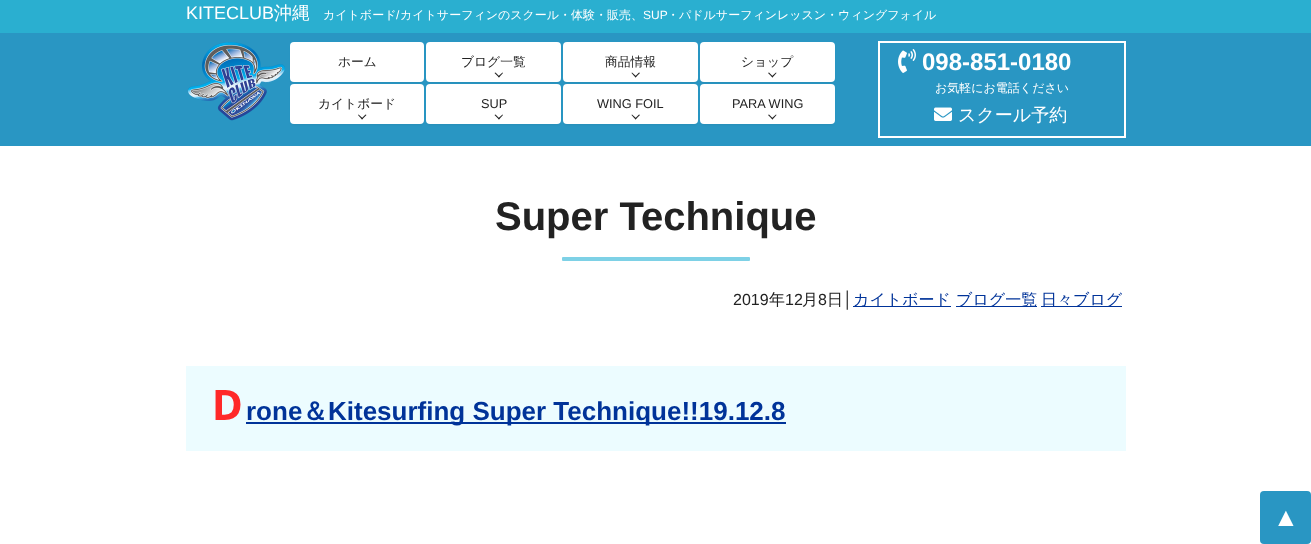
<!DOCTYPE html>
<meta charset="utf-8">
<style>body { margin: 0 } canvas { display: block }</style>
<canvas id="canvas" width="1311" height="544"></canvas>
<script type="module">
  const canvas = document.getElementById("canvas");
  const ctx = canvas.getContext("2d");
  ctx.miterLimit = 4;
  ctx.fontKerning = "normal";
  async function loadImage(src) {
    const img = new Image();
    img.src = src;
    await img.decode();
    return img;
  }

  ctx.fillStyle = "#ffffff";
  ctx.fillRect(0, 0, 1311, 544);
  ctx.fillStyle = "#2aafd0";
  ctx.fillRect(0, 0, 1311, 33);
  ctx.font = "18px Liberation Sans";
  ctx.fillStyle = "#ffffff";
  ctx.fillText("KITECLUB", 186, 19);
  ctx.font = "500 18px WenQuanYi Zen Hei";
  ctx.fillText("沖縄", 274, 19);
  ctx.font = "500 12px WenQuanYi Zen Hei";
  ctx.fillText("カイトボード カイトサーフィンのスクール・体験・販売、", 323, 19);
  ctx.fillText("・パドルサーフィンレッスン・ウィングフォイル", 667, 19);
  ctx.font = "12px Liberation Sans";
  ctx.fillText("/", 396, 19);
  ctx.fillText("SUP", 643, 19);
  ctx.fillStyle = "#2996c3";
  ctx.fillRect(0, 33, 1311, 113);
  ctx.drawImage(await loadImage("img1.png"), 188, 42, 97, 79);
  ctx.fillStyle = "rgba(0, 0, 0, 0.06)";
  ctx.filter = "blur(1px)";
  ctx.beginPath();
  ctx.roundRect(291, 45, 132, 38, 3);
  ctx.fill();
  ctx.filter = "none";
  ctx.fillStyle = "#ffffff";
  ctx.beginPath();
  ctx.roundRect(290, 42, 134, 40, 4);
  ctx.fill();
  ctx.font = "500 12.75px WenQuanYi Zen Hei";
  ctx.fillStyle = "#222222";
  ctx.fillText("ホーム", 338, 66);
  ctx.fillStyle = "rgba(0, 0, 0, 0.06)";
  ctx.filter = "blur(1px)";
  ctx.beginPath();
  ctx.roundRect(427, 45, 133, 38, 3);
  ctx.fill();
  ctx.filter = "none";
  ctx.fillStyle = "#ffffff";
  ctx.beginPath();
  ctx.roundRect(426, 42, 135, 40, 4);
  ctx.fill();
  ctx.fillStyle = "#222222";
  ctx.fillText("ブログ一覧", 461, 66);
  ctx.beginPath();
  ctx.moveTo(502.5, 72.5);
  ctx.lineTo(503, 73);
  ctx.lineTo(499, 77.5);
  ctx.lineTo(498, 76.5);
  ctx.closePath();
  ctx.fill();
  ctx.beginPath();
  ctx.moveTo(495.5, 72.5);
  ctx.lineTo(499.5, 76.5);
  ctx.lineTo(499, 77.5);
  ctx.lineTo(494.5, 73);
  ctx.closePath();
  ctx.fill();
  ctx.fillStyle = "rgba(0, 0, 0, 0.06)";
  ctx.filter = "blur(1px)";
  ctx.beginPath();
  ctx.roundRect(564, 45, 133, 38, 3);
  ctx.fill();
  ctx.filter = "none";
  ctx.fillStyle = "#ffffff";
  ctx.beginPath();
  ctx.roundRect(563, 42, 135, 40, 4);
  ctx.fill();
  ctx.fillStyle = "#222222";
  ctx.fillText("商品情報", 605, 66);
  ctx.beginPath();
  ctx.moveTo(639, 72.5);
  ctx.lineTo(640, 73);
  ctx.lineTo(635.5, 77.5);
  ctx.lineTo(635, 76.5);
  ctx.closePath();
  ctx.fill();
  ctx.beginPath();
  ctx.moveTo(632, 72.5);
  ctx.lineTo(636.5, 76.5);
  ctx.lineTo(635.5, 77.5);
  ctx.lineTo(631.5, 73);
  ctx.closePath();
  ctx.fill();
  ctx.fillStyle = "rgba(0, 0, 0, 0.06)";
  ctx.filter = "blur(1px)";
  ctx.beginPath();
  ctx.roundRect(701, 45, 133, 38, 3);
  ctx.fill();
  ctx.filter = "none";
  ctx.fillStyle = "#ffffff";
  ctx.beginPath();
  ctx.roundRect(700, 42, 135, 40, 4);
  ctx.fill();
  ctx.fillStyle = "#222222";
  ctx.fillText("ショップ", 741, 66);
  ctx.beginPath();
  ctx.moveTo(776, 72.5);
  ctx.lineTo(776.5, 73);
  ctx.lineTo(772.5, 77.5);
  ctx.lineTo(771.5, 76.5);
  ctx.closePath();
  ctx.fill();
  ctx.beginPath();
  ctx.moveTo(769, 72.5);
  ctx.lineTo(773, 76.5);
  ctx.lineTo(772.5, 77.5);
  ctx.lineTo(768, 73);
  ctx.closePath();
  ctx.fill();
  ctx.fillStyle = "rgba(0, 0, 0, 0.06)";
  ctx.filter = "blur(1px)";
  ctx.beginPath();
  ctx.roundRect(291, 87, 132, 38, 3);
  ctx.fill();
  ctx.filter = "none";
  ctx.fillStyle = "#ffffff";
  ctx.beginPath();
  ctx.roundRect(290, 84, 134, 40, 4);
  ctx.fill();
  ctx.fillStyle = "#222222";
  ctx.fillText("カイトボード", 318, 108);
  ctx.beginPath();
  ctx.moveTo(365.5, 114.5);
  ctx.lineTo(366.5, 115);
  ctx.lineTo(362, 119.5);
  ctx.lineTo(361.5, 118.5);
  ctx.closePath();
  ctx.fill();
  ctx.beginPath();
  ctx.moveTo(358.5, 114.5);
  ctx.lineTo(363, 118.5);
  ctx.lineTo(362, 119.5);
  ctx.lineTo(358, 115);
  ctx.closePath();
  ctx.fill();
  ctx.fillStyle = "rgba(0, 0, 0, 0.06)";
  ctx.filter = "blur(1px)";
  ctx.beginPath();
  ctx.roundRect(427, 87, 133, 38, 3);
  ctx.fill();
  ctx.filter = "none";
  ctx.fillStyle = "#ffffff";
  ctx.beginPath();
  ctx.roundRect(426, 84, 135, 40, 4);
  ctx.fill();
  ctx.font = "12.75px Liberation Sans";
  ctx.fillStyle = "#222222";
  ctx.fillText("SUP", 481, 108);
  ctx.beginPath();
  ctx.moveTo(502.5, 114.5);
  ctx.lineTo(503, 115);
  ctx.lineTo(499, 119.5);
  ctx.lineTo(498, 118.5);
  ctx.closePath();
  ctx.fill();
  ctx.beginPath();
  ctx.moveTo(495.5, 114.5);
  ctx.lineTo(499.5, 118.5);
  ctx.lineTo(499, 119.5);
  ctx.lineTo(494.5, 115);
  ctx.closePath();
  ctx.fill();
  ctx.fillStyle = "rgba(0, 0, 0, 0.06)";
  ctx.filter = "blur(1px)";
  ctx.beginPath();
  ctx.roundRect(564, 87, 133, 38, 3);
  ctx.fill();
  ctx.filter = "none";
  ctx.fillStyle = "#ffffff";
  ctx.beginPath();
  ctx.roundRect(563, 84, 135, 40, 4);
  ctx.fill();
  ctx.fillStyle = "#222222";
  ctx.fillText("WING FOIL", 597, 108);
  ctx.beginPath();
  ctx.moveTo(639, 114.5);
  ctx.lineTo(640, 115);
  ctx.lineTo(635.5, 119.5);
  ctx.lineTo(635, 118.5);
  ctx.closePath();
  ctx.fill();
  ctx.beginPath();
  ctx.moveTo(632, 114.5);
  ctx.lineTo(636.5, 118.5);
  ctx.lineTo(635.5, 119.5);
  ctx.lineTo(631.5, 115);
  ctx.closePath();
  ctx.fill();
  ctx.fillStyle = "rgba(0, 0, 0, 0.06)";
  ctx.filter = "blur(1px)";
  ctx.beginPath();
  ctx.roundRect(701, 87, 133, 38, 3);
  ctx.fill();
  ctx.filter = "none";
  ctx.fillStyle = "#ffffff";
  ctx.beginPath();
  ctx.roundRect(700, 84, 135, 40, 4);
  ctx.fill();
  ctx.fillStyle = "#222222";
  ctx.fillText("PARA WING", 732, 108);
  ctx.beginPath();
  ctx.moveTo(776, 114.5);
  ctx.lineTo(776.5, 115);
  ctx.lineTo(772.5, 119.5);
  ctx.lineTo(771.5, 118.5);
  ctx.closePath();
  ctx.fill();
  ctx.beginPath();
  ctx.moveTo(769, 114.5);
  ctx.lineTo(773, 118.5);
  ctx.lineTo(772.5, 119.5);
  ctx.lineTo(768, 115);
  ctx.closePath();
  ctx.fill();
  ctx.strokeStyle = "#ffffff";
  ctx.lineWidth = 2;
  ctx.strokeRect(879, 42, 246, 95);
  ctx.drawImage(await loadImage("img2.png"), 898, 49, 18, 24);
  ctx.font = "bold 24px Liberation Sans";
  ctx.fillStyle = "#ffffff";
  ctx.fillText("098-851-0180", 922, 70);
  ctx.font = "500 12px WenQuanYi Zen Hei";
  ctx.fillText("お気軽にお電話ください", 935, 92);
  ctx.drawImage(await loadImage("img3.png"), 934, 107, 18, 14);
  ctx.font = "500 18px WenQuanYi Zen Hei";
  ctx.fillText("スクール予約", 958, 121);
  ctx.font = "bold 40px Liberation Sans";
  ctx.fillStyle = "#222222";
  ctx.fillText("Super Technique", 495, 230);
  ctx.fillStyle = "#7ed1e6";
  ctx.beginPath();
  ctx.roundRect(562, 257, 188, 4, 1);
  ctx.fill();
  ctx.font = "16px Liberation Sans";
  ctx.fillStyle = "#222222";
  ctx.fillText("2019", 733, 305);
  ctx.font = "500 16px WenQuanYi Zen Hei";
  ctx.fillText("年", 769, 305);
  ctx.font = "16px Liberation Sans";
  ctx.fillText("12", 785, 305);
  ctx.font = "500 16px WenQuanYi Zen Hei";
  ctx.fillText("月", 802, 305);
  ctx.font = "16px Liberation Sans";
  ctx.fillText("8", 818, 305);
  ctx.font = "500 16px WenQuanYi Zen Hei";
  ctx.fillText("日", 827, 305);
  ctx.font = "16px Liberation Sans";
  ctx.fillText("│", 843, 305);
  ctx.fillStyle = "#003399";
  ctx.fillRect(853, 306, 98, 1);
  ctx.font = "500 16px WenQuanYi Zen Hei";
  ctx.fillText("カイトボード", 853, 305);
  ctx.fillRect(956, 306, 81, 1);
  ctx.fillText("ブログ一覧", 956, 305);
  ctx.fillRect(1041, 306, 81, 1);
  ctx.fillText("日々ブログ", 1041, 305);
  ctx.fillStyle = "#ecfcff";
  ctx.fillRect(186, 366, 940, 85);
  ctx.letterSpacing = "4px";
  ctx.font = "bold 42px Noto Sans";
  ctx.fillStyle = "#ff2929";
  ctx.fillText("D", 212, 420);
  ctx.letterSpacing = "0px";
  ctx.font = "bold 26px Liberation Sans";
  ctx.fillStyle = "#003399";
  ctx.fillText("rone", 246, 420);
  ctx.fillRect(246, 422, 540, 2);
  ctx.font = "bold 26px WenQuanYi Zen Hei";
  ctx.fillText("＆", 302, 420);
  ctx.font = "bold 26px Liberation Sans";
  ctx.fillText("Kitesurfing Super Technique!!19.12.8", 328, 420);
  ctx.fillStyle = "#2996c3";
  ctx.beginPath();
  ctx.roundRect(1260, 491, 51, 53, 4);
  ctx.fill();
  ctx.font = "26px Liberation Sans";
  ctx.fillStyle = "#ffffff";
  ctx.fillText("▲", 1273, 526);
</script>
